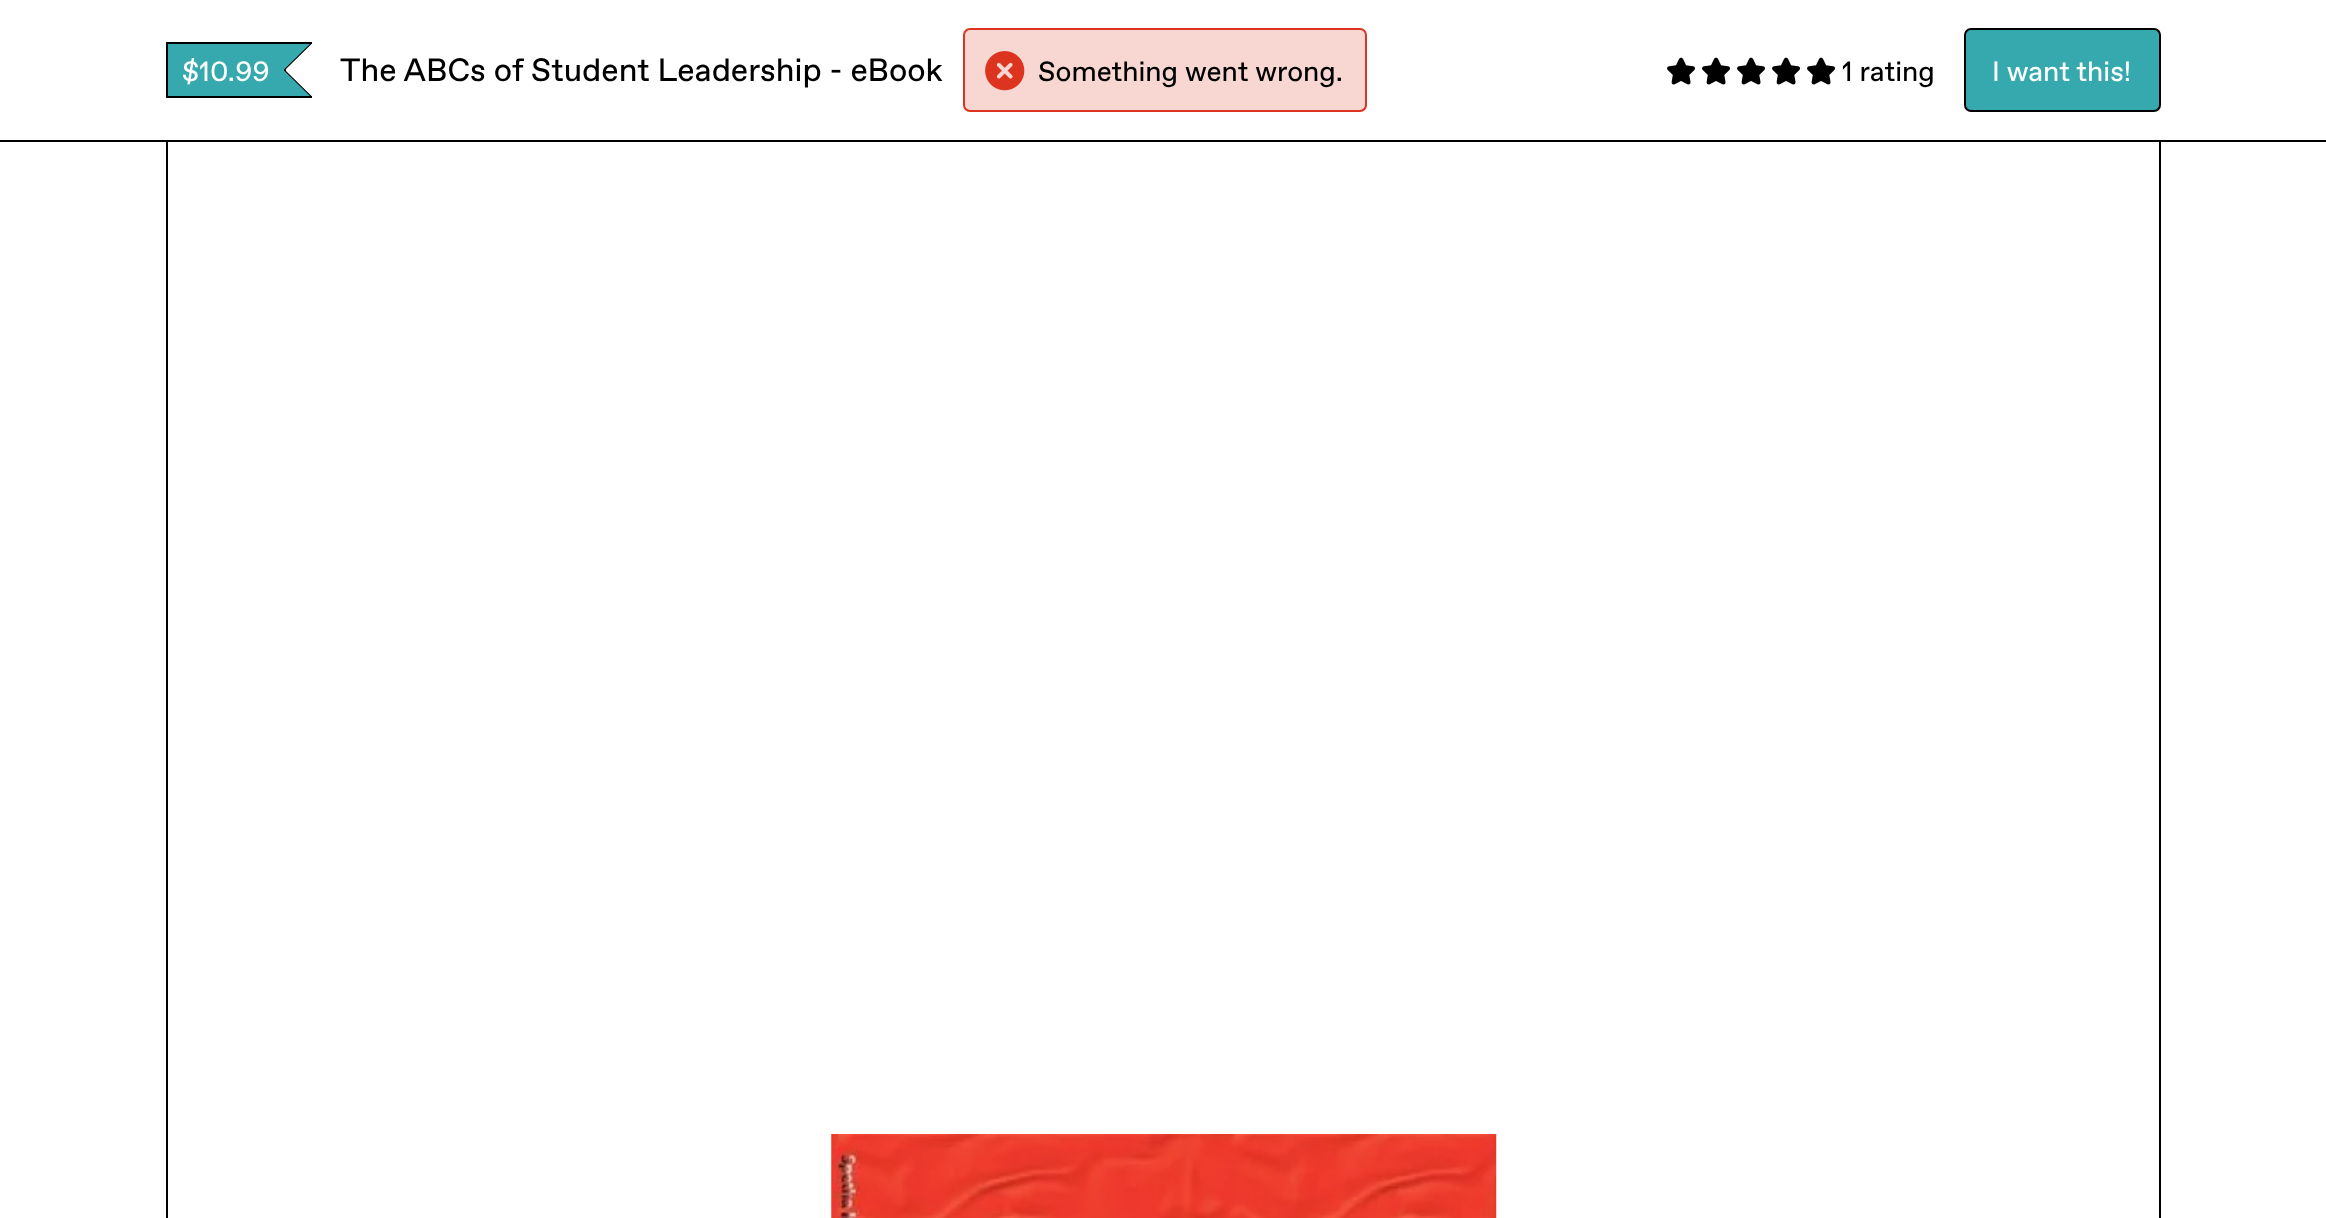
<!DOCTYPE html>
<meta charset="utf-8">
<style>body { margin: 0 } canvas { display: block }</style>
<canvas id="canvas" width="2326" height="1218"></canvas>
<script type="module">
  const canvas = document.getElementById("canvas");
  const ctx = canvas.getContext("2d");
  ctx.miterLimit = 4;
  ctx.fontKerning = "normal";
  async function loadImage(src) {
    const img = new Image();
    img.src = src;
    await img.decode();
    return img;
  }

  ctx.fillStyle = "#ffffff";
  ctx.fillRect(0, 0, 2326, 1218);
  ctx.strokeStyle = "#000000";
  ctx.lineWidth = 2;
  ctx.strokeRect(167, 113, 1993, 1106);
  ctx.fillStyle = "#000000";
  ctx.beginPath();
  ctx.moveTo(0, 140);
  ctx.lineTo(0, 142);
  ctx.lineTo(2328, 142);
  ctx.lineTo(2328, 2);
  ctx.lineTo(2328, 140);
  ctx.closePath();
  ctx.fill();
  ctx.fillStyle = "#ffffff";
  ctx.fillRect(166, 112, 1995, 28);
  ctx.fillStyle = "#000000";
  ctx.fillRect(166, 42, 146, 2);
  ctx.fillRect(166, 96, 146, 2);
  ctx.fillRect(166, 42, 2, 56);
  ctx.fillStyle = "#36a9ae";
  ctx.fillRect(168, 44, 116, 52);
  ctx.fillStyle = "#000000";
  ctx.beginPath();
  ctx.moveTo(283.5, 44);
  ctx.lineTo(311.5, 44);
  ctx.lineTo(285, 70);
  ctx.closePath();
  ctx.moveTo(311.5, 96);
  ctx.lineTo(283.5, 96);
  ctx.lineTo(285, 70);
  ctx.closePath();
  ctx.fill();
  ctx.fillRect(284, 67, 2, 6);
  ctx.fillStyle = "#36a9ae";
  ctx.beginPath();
  ctx.moveTo(282, 44);
  ctx.lineTo(310, 44);
  ctx.lineTo(283.5, 70);
  ctx.closePath();
  ctx.moveTo(310, 96);
  ctx.lineTo(282, 96);
  ctx.lineTo(283.5, 70);
  ctx.closePath();
  ctx.fill();
  ctx.font = "28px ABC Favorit";
  ctx.fillStyle = "#ffffff";
  ctx.fillText("$10.99", 182, 81);
  ctx.font = "32.25px ABC Favorit";
  ctx.fillStyle = "#000000";
  ctx.fillText("The ABCs of Student Leadership - eBook", 340, 81);
  ctx.drawImage(await loadImage("img1.png"), 1667, 57, 28, 28);
  ctx.drawImage(await loadImage("img1.png"), 1702, 57, 28, 28);
  ctx.drawImage(await loadImage("img1.png"), 1737, 57, 28, 28);
  ctx.drawImage(await loadImage("img1.png"), 1772, 57, 28, 28);
  ctx.drawImage(await loadImage("img1.png"), 1807, 57, 28, 28);
  ctx.font = "28px ABC Favorit";
  ctx.fillText("1 rating", 1842, 81);
  ctx.fillStyle = "#36a9ae";
  ctx.beginPath();
  ctx.roundRect(1965, 29, 195, 82, 6);
  ctx.fill();
  ctx.stroke();
  ctx.fillStyle = "#ffffff";
  ctx.fillText("I want this!", 1992, 81);
  ctx.drawImage(await loadImage("img2.png"), 831, 1134, 666, 84);
  ctx.fillStyle = "#f8d6d2";
  ctx.beginPath();
  ctx.roundRect(964, 29, 402, 82, 6);
  ctx.fill();
  ctx.strokeStyle = "#dc341e";
  ctx.stroke();
  ctx.drawImage(await loadImage("img3.png"), 985, 51, 40, 40);
  ctx.fillStyle = "#000000";
  ctx.fillText("Something went wrong.", 1038, 81);
</script>
